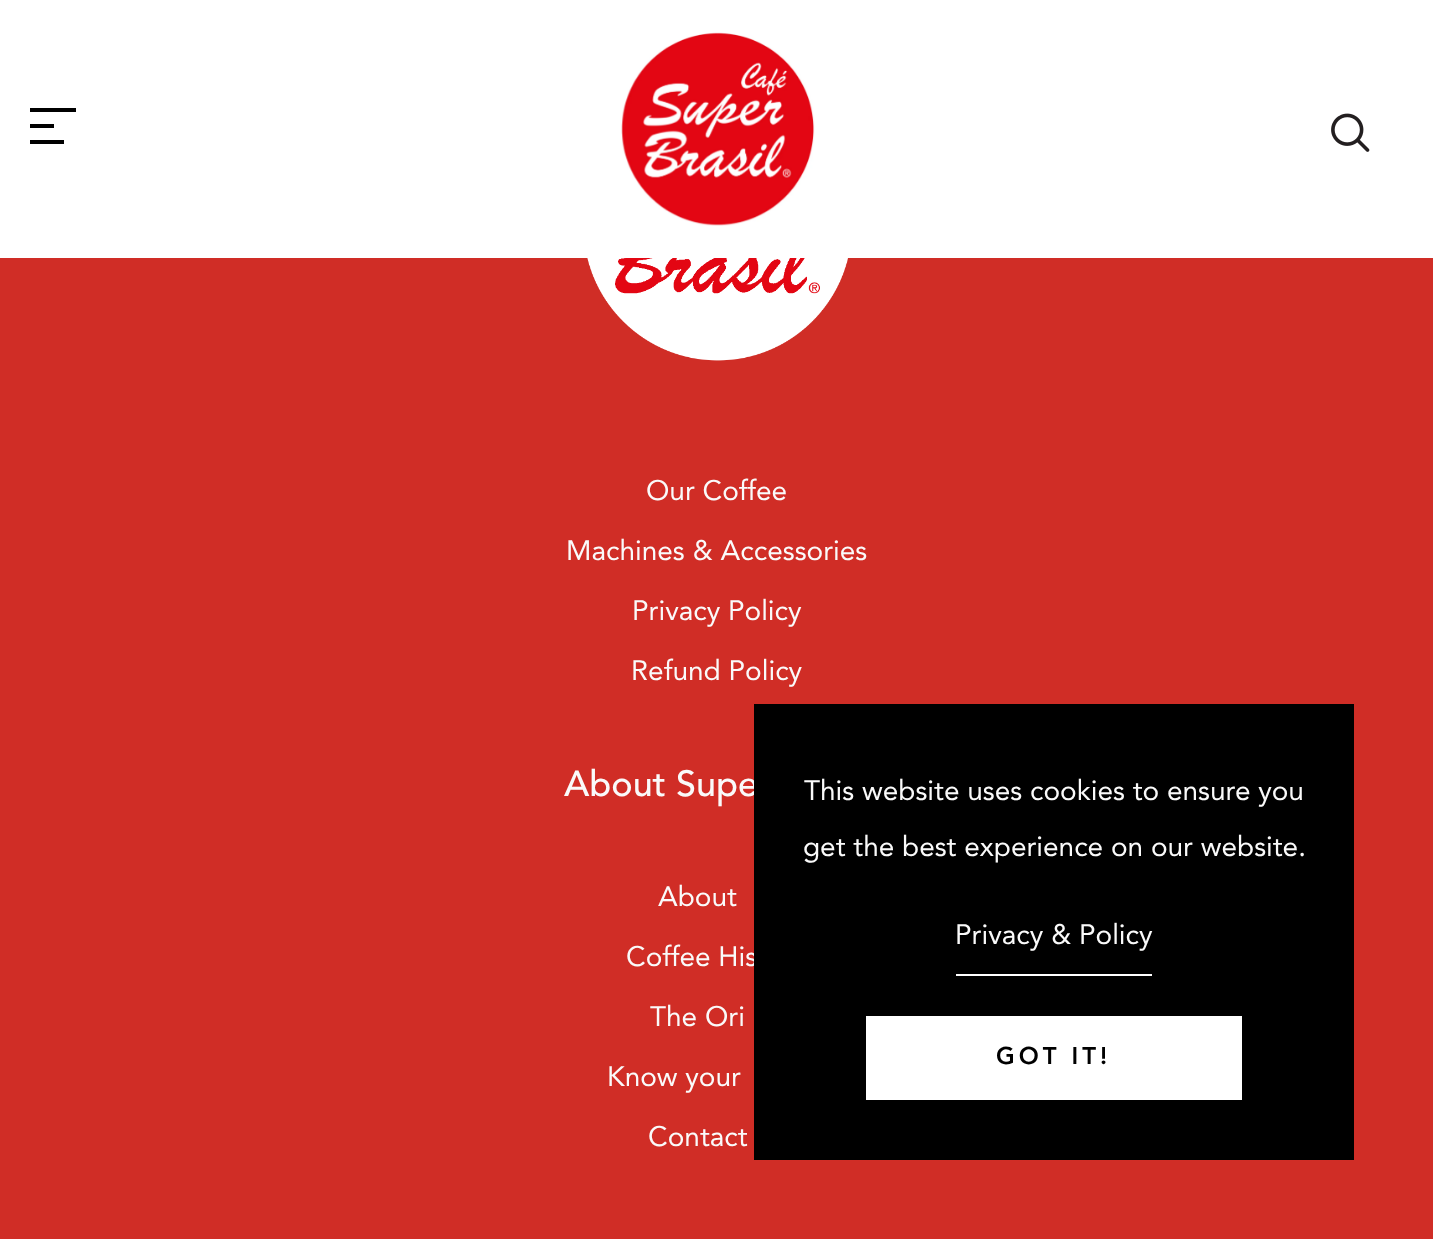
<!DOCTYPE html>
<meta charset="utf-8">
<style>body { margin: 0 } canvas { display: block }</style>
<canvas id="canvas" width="1433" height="1239"></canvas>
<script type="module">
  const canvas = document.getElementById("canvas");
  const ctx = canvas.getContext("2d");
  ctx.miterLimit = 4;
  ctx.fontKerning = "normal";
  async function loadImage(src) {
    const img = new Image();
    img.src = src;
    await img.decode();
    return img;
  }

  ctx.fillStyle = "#d02d26";
  ctx.fillRect(0, 0, 1433, 1239);
  ctx.fillStyle = "#ffffff";
  ctx.fillRect(0, 0, 1433, 258);
  ctx.fillStyle = "#000000";
  ctx.fillRect(30, 108, 46, 4);
  ctx.fillRect(30, 124, 24, 4);
  ctx.fillRect(30, 140, 34, 4);
  ctx.drawImage(await loadImage("img1.png"), 621, 32, 194, 194);
  ctx.drawImage(await loadImage("img2.png"), 1331, 113, 39, 39);
  ctx.drawImage(await loadImage("img3.png"), 587, 258, 261, 103);
  ctx.font = "28px Avenir";
  ctx.fillStyle = "#fafafa";
  ctx.fillText("Our Coffee", 646, 500);
  ctx.fillText("Machines & Accessories", 566, 560);
  ctx.fillText("Privacy Policy", 632, 620);
  ctx.fillText("Refund Policy", 631, 680);
  ctx.font = "500 36px Avenir";
  ctx.fillText("About Supe", 564, 796);
  ctx.font = "28px Avenir";
  ctx.fillText("About", 658, 906);
  ctx.fillText("Coffee His", 626, 966);
  ctx.fillText("The Ori", 650, 1026);
  ctx.fillText("Know your", 607, 1086);
  ctx.fillText("Contact", 648, 1146);
  ctx.fillStyle = "#000000";
  ctx.fillRect(754, 704, 600, 456);
  ctx.fillStyle = "#fafafa";
  ctx.fillText("This website uses cookies to ensure you", 804, 800);
  ctx.fillText("get the best experience on our website.", 803, 856);
  ctx.fillStyle = "#ffffff";
  ctx.fillRect(956, 974, 196, 2);
  ctx.fillStyle = "#fafafa";
  ctx.fillText("Privacy & Policy", 955, 944);
  ctx.fillStyle = "#ffffff";
  ctx.fillRect(866, 1016, 376, 84);
  ctx.letterSpacing = "4px";
  ctx.font = "900 24px Avenir";
  ctx.fillStyle = "#000000";
  ctx.fillText("GOT IT!", 996, 1064);
</script>
